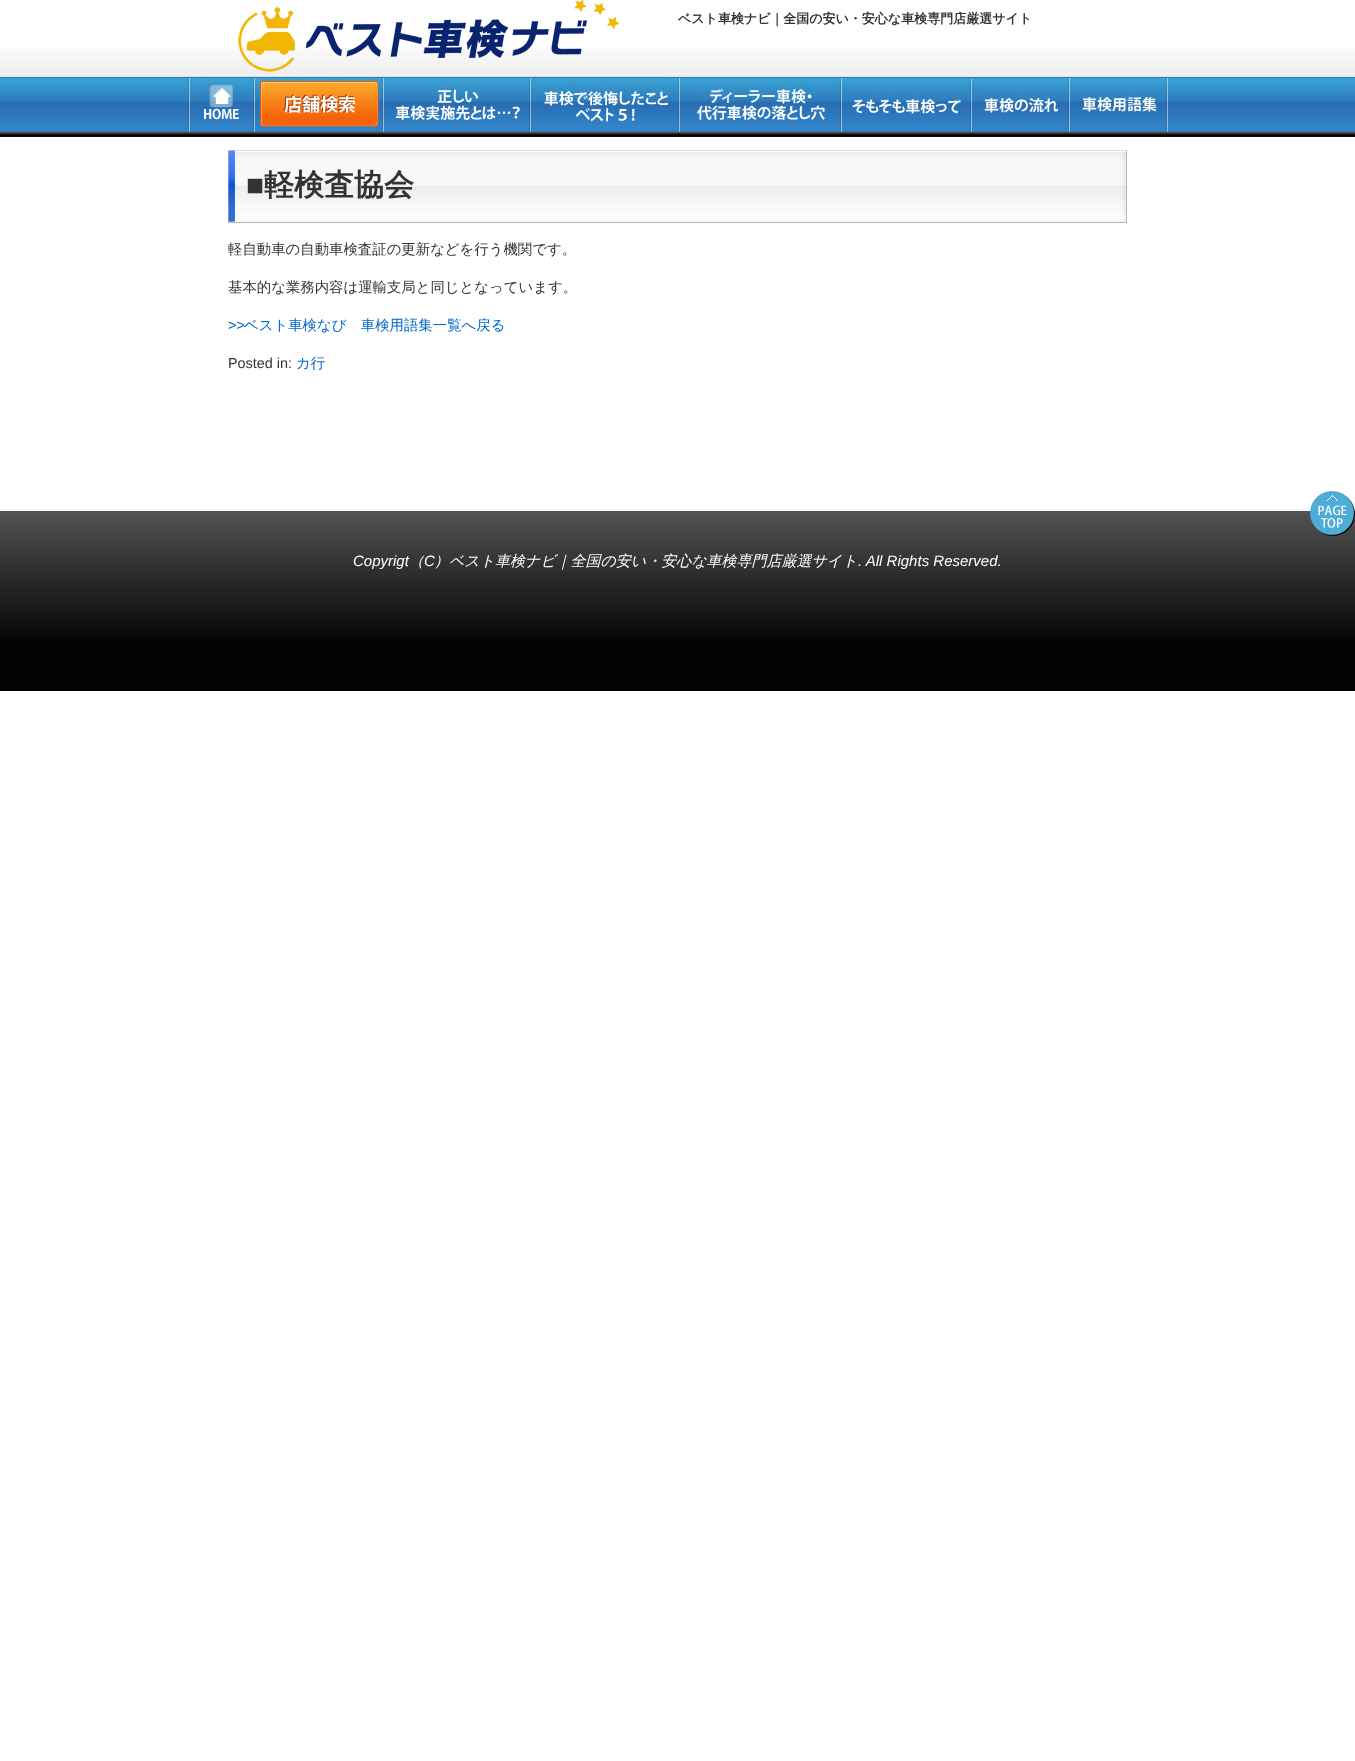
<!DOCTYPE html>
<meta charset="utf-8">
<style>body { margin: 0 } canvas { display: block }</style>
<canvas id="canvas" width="1355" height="1761"></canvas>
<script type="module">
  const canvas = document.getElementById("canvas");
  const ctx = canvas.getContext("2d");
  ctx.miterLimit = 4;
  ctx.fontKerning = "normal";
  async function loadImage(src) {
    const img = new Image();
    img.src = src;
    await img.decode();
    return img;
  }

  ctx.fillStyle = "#ffffff";
  ctx.fillRect(0, 0, 1355, 1761);
  ctx.drawImage(await loadImage("img1.png"), 0, 48, 1355, 89);
  ctx.drawImage(await loadImage("img2.png"), 188, 0, 477, 77);
  ctx.font = "bold 13px WenQuanYi Zen Hei";
  ctx.fillStyle = "#333333";
  ctx.fillText("ベスト車検ナビ｜全国の安い・安心な車検専門店厳選サイト", 678, 23);
  ctx.drawImage(await loadImage("img3.png"), 188, 77, 66, 55);
  ctx.drawImage(await loadImage("img4.png"), 254, 77, 129, 55);
  ctx.drawImage(await loadImage("img5.png"), 383, 77, 147, 55);
  ctx.drawImage(await loadImage("img6.png"), 530, 77, 149, 55);
  ctx.drawImage(await loadImage("img7.png"), 679, 77, 162, 55);
  ctx.drawImage(await loadImage("img8.png"), 841, 77, 130, 55);
  ctx.drawImage(await loadImage("img9.png"), 971, 77, 98, 55);
  ctx.drawImage(await loadImage("img10.png"), 1069, 77, 99, 55);
  ctx.drawImage(await loadImage("img11.png"), 228, 150, 899, 73);
  ctx.font = "bold 30px Liberation Sans";
  ctx.fillText("■", 246, 195);
  ctx.font = "bold 30px WenQuanYi Zen Hei";
  ctx.fillText("軽検査協会", 264, 195);
  ctx.font = "500 14.4px WenQuanYi Zen Hei";
  ctx.fillText("軽自動車の自動車検査証の更新などを行う機関です。", 228, 254);
  ctx.fillText("基本的な業務内容は運輸支局と同じとなっています。", 228, 292);
  ctx.font = "14.4px Liberation Sans";
  ctx.fillStyle = "#0066cc";
  ctx.fillText(">>", 228, 330);
  ctx.font = "500 14.4px WenQuanYi Zen Hei";
  ctx.fillText("ベスト車検なび　車検用語集一覧へ戻る", 244, 330);
  ctx.font = "14.4px Liberation Sans";
  ctx.fillStyle = "#333333";
  ctx.fillText("Posted in:", 228, 368);
  ctx.font = "500 14.4px WenQuanYi Zen Hei";
  ctx.fillStyle = "#0066cc";
  ctx.fillText("カ行", 296, 368);
  ctx.drawImage(await loadImage("img12.png"), 0, 511, 1355, 180);
  ctx.drawImage(await loadImage("img13.png"), 1310, 491, 45, 45);
  ctx.font = "italic 15px Liberation Sans";
  ctx.fillStyle = "#ffffff";
  ctx.fillText("Copyrigt", 353, 566);
  ctx.font = "italic 500 15px WenQuanYi Zen Hei";
  ctx.fillText("（", 409, 566);
  ctx.font = "italic 15px Liberation Sans";
  ctx.fillText("C", 424, 566);
  ctx.font = "italic 500 15px WenQuanYi Zen Hei";
  ctx.fillText("）ベスト車検ナビ｜全国の安い・安心な車検専門店厳選サイト", 434, 566);
  ctx.font = "italic 15px Liberation Sans";
  ctx.fillText(". All Rights Reserved.", 858, 566);
</script>
